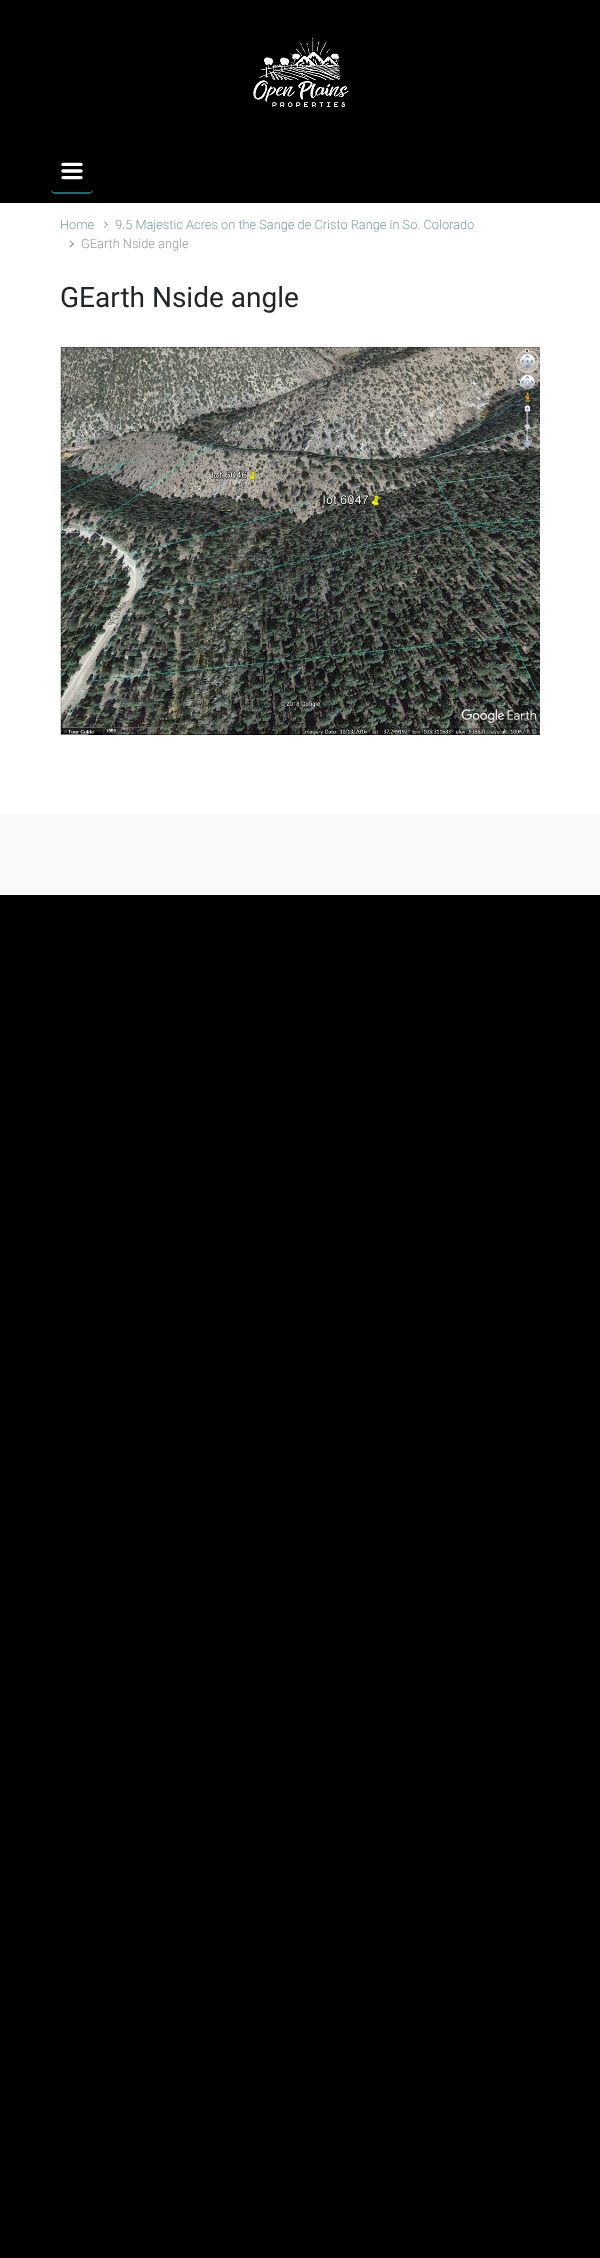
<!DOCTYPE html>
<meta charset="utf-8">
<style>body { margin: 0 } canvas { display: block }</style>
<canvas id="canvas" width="600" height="2258"></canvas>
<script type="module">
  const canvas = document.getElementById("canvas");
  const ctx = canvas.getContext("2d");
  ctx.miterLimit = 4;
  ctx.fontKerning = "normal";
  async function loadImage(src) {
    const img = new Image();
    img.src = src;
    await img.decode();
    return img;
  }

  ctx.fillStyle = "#000000";
  ctx.fillRect(0, 0, 600, 2258);
  ctx.fillStyle = "#f9f9f9";
  ctx.fillRect(0, 815, 600, 80);
  ctx.drawImage(await loadImage("img1.png"), 251, 37, 102, 73);
  ctx.fillStyle = "#1d6e72";
  ctx.beginPath();
  ctx.moveTo(51, 188);
  ctx.bezierCurveTo(51, 195, 54, 194, 61, 194);
  ctx.lineTo(83, 194);
  ctx.bezierCurveTo(90, 194, 93, 195, 93, 188);
  ctx.bezierCurveTo(93, 190, 91, 192, 89, 192);
  ctx.lineTo(55, 192);
  ctx.bezierCurveTo(53, 192, 51, 190, 51, 188);
  ctx.closePath();
  ctx.fill();
  ctx.fillStyle = "#000000";
  ctx.beginPath();
  ctx.roundRect(51.5, 150.5, 41, 41, 3.5);
  ctx.fill();
  ctx.strokeStyle = "#000000";
  ctx.stroke();
  ctx.drawImage(await loadImage("img2.png"), 61, 162, 22, 18);
  ctx.fillStyle = "#ffffff";
  ctx.fillRect(0, 203, 600, 612);
  ctx.font = "300 12.8px Roboto";
  ctx.fillStyle = "#7a9cad";
  ctx.fillText("Home", 60, 229);
  ctx.fillStyle = "#999999";
  ctx.beginPath();
  ctx.moveTo(104, 222);
  ctx.lineTo(104.5, 221.5);
  ctx.lineTo(108, 224.5);
  ctx.lineTo(107.5, 225.5);
  ctx.closePath();
  ctx.fill();
  ctx.beginPath();
  ctx.moveTo(104, 227.5);
  ctx.lineTo(107.5, 224);
  ctx.lineTo(108, 224.5);
  ctx.lineTo(104.5, 228);
  ctx.closePath();
  ctx.moveTo(69.5, 241);
  ctx.lineTo(70.5, 240.5);
  ctx.lineTo(74, 244);
  ctx.lineTo(73, 244.5);
  ctx.closePath();
  ctx.fill();
  ctx.fillStyle = "#7a9cad";
  ctx.fillText("9.5 Majestic Acres on the Sange de Cristo Range in So. Colorado", 115, 229);
  ctx.fillStyle = "#999999";
  ctx.beginPath();
  ctx.moveTo(69.5, 246.5);
  ctx.lineTo(73, 243);
  ctx.lineTo(74, 244);
  ctx.lineTo(70.5, 247.5);
  ctx.closePath();
  ctx.fill();
  ctx.fillText("GEarth Nside angle", 81, 248);
  ctx.font = "28px Roboto";
  ctx.fillStyle = "#212529";
  ctx.fillText("GEarth Nside angle", 60, 307);
  ctx.drawImage(await loadImage("img3.png"), 60, 347, 480, 388);
</script>
